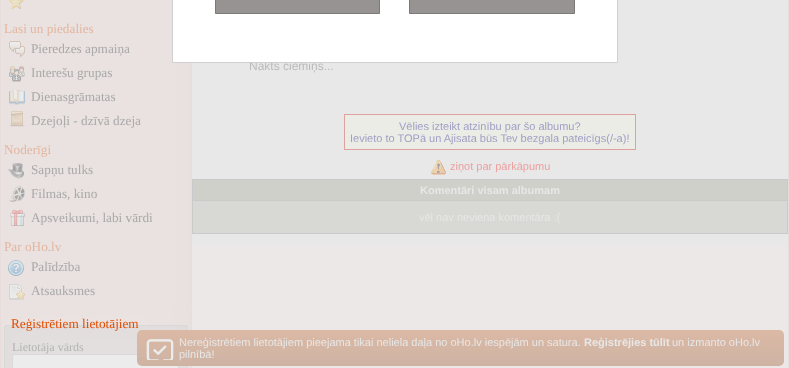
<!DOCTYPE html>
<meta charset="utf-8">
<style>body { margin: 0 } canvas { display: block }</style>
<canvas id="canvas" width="789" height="368"></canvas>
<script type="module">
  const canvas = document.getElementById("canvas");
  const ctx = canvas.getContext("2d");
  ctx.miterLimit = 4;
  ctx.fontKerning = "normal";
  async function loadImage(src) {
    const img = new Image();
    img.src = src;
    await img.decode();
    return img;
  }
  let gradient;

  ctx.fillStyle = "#e9dddb";
  ctx.fillRect(0, 0, 789, 368);
  ctx.fillStyle = "#eae2e1";
  ctx.fillRect(1, 0, 190, 368);
  ctx.fillStyle = "#e8e8e8";
  ctx.fillRect(192, 63, 397, 46);
  ctx.font = "12px Liberation Sans";
  ctx.fillStyle = "#bbbbbc";
  ctx.fillText("Nakts ciemiņš...", 249, 70);
  ctx.fillStyle = "#e8e8e8";
  ctx.fillRect(589, 0, 199, 109);
  ctx.fillStyle = "#ffffff";
  ctx.beginPath();
  ctx.rect(172.5, -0.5, 445, 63);
  ctx.fill();
  ctx.strokeStyle = "#d0d0d0";
  ctx.stroke();
  ctx.fillStyle = "#969392";
  ctx.beginPath();
  ctx.rect(215.5, -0.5, 164, 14);
  ctx.fill();
  ctx.strokeStyle = "#7b7a79";
  ctx.stroke();
  ctx.beginPath();
  ctx.rect(409.5, -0.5, 165, 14);
  ctx.fill();
  ctx.stroke();
  ctx.drawImage(await loadImage("img1.png"), 172, 63, 19, 243);
  ctx.drawImage(await loadImage("img2.png"), 9, 0, 15, 9);
  ctx.font = "13.25px Liberation Serif";
  ctx.fillStyle = "#e3b6a0";
  ctx.fillText("Lasi un piedalies", 4, 33);
  ctx.drawImage(await loadImage("img3.png"), 9, 41, 16, 16);
  ctx.fillStyle = "#a9a9a9";
  ctx.fillText("Pieredzes apmaiņa", 31, 53);
  ctx.drawImage(await loadImage("img4.png"), 9, 66, 16, 16);
  ctx.fillText("Interešu grupas", 31, 77);
  ctx.drawImage(await loadImage("img5.png"), 9, 89, 16, 16);
  ctx.fillText("Dienasgrāmatas", 31, 101);
  ctx.drawImage(await loadImage("img6.png"), 9, 111, 16, 16);
  ctx.fillText("Dzejoļi - dzīvā dzeja", 31, 125);
  ctx.fillStyle = "#e3b6a0";
  ctx.fillText("Noderīgi", 4, 154);
  ctx.drawImage(await loadImage("img7.png"), 8, 163, 16, 16);
  ctx.fillStyle = "#a9a9a9";
  ctx.fillText("Sapņu tulks", 31, 174);
  ctx.drawImage(await loadImage("img8.png"), 9, 186, 16, 16);
  ctx.fillText("Filmas, kino", 31, 198);
  ctx.drawImage(await loadImage("img9.png"), 10, 210, 15, 16);
  ctx.fillText("Apsveikumi, labi vārdi", 31, 222);
  ctx.fillStyle = "#e3b6a0";
  ctx.fillText("Par oHo.lv", 4, 251);
  ctx.drawImage(await loadImage("img10.png"), 8, 260, 16, 16);
  ctx.fillStyle = "#a9a9a9";
  ctx.fillText("Palīdzība", 31, 271);
  ctx.drawImage(await loadImage("img11.png"), 9, 284, 16, 16);
  ctx.fillText("Atsauksmes", 31, 295);
  ctx.drawImage(await loadImage("img12.png"), 1, 306, 190, 62);
  ctx.drawImage(await loadImage("img13.png"), 4, 325, 184, 43);
  ctx.beginPath();
  ctx.roundRect(4.5, 325.5, 183, 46, 2.5);
  ctx.strokeStyle = "#d9d9d9";
  ctx.stroke();
  ctx.fillStyle = "#ececec";
  ctx.beginPath();
  ctx.roundRect(12.5, 354.5, 166, 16, 1.5);
  ctx.fill();
  ctx.stroke();
  ctx.fillStyle = "#ece8e8";
  ctx.fillRect(192, 246, 596, 122);
  gradient = ctx.createLinearGradient(461, 330, 461, 366);
  gradient.addColorStop(0, "#dbb9a5");
  gradient.addColorStop(1, "#ceb3a3");
  ctx.fillStyle = gradient;
  ctx.beginPath();
  ctx.roundRect(137, 330, 647, 36, 5);
  ctx.fill();
  ctx.fillStyle = "#e24c00";
  ctx.fillText("Reģistrētiem lietotājiem", 11, 328);
  ctx.font = "12px Liberation Serif";
  ctx.fillStyle = "#b3b3b3";
  ctx.fillText("Lietotāja vārds", 12, 351);
  ctx.fillStyle = "#e8e8e8";
  ctx.fillRect(192, 109, 596, 137);
  ctx.fillStyle = "#e0a0a0";
  ctx.fillRect(344, 114, 292, 36);
  ctx.fillStyle = "#ecece6";
  ctx.fillRect(345, 115, 290, 34);
  ctx.font = "11px Liberation Sans";
  ctx.fillStyle = "#a0a0c6";
  ctx.fillText("Vēlies izteikt atzinību par šo albumu?", 399, 130);
  ctx.fillText("Ievieto to TOPā un Ajisata būs Tev bezgala pateicīgs(/-a)!", 350, 142);
  ctx.drawImage(await loadImage("img14.png"), 431, 160, 15, 15);
  ctx.fillStyle = "#eca0a0";
  ctx.fillText("ziņot par pārkāpumu", 450, 170);
  ctx.fillStyle = "#cacaca";
  ctx.fillRect(192, 179, 596, 55);
  ctx.fillStyle = "#cfd0ca";
  ctx.fillRect(193, 180, 594, 20);
  ctx.font = "bold 11px Liberation Sans";
  ctx.fillStyle = "#e7e7e7";
  ctx.fillText("Komentāri visam albumam", 420, 194);
  ctx.fillStyle = "#d8d8d4";
  ctx.fillRect(193, 201, 594, 32);
  ctx.font = "11px Liberation Sans";
  ctx.fillStyle = "#e7e7e7";
  ctx.fillText("vēl nav neviena komentāra :(", 419, 221);
  ctx.drawImage(await loadImage("img15.png"), 146, 339, 28, 21);
  ctx.fillText("Nereģistrētiem lietotājiem pieejama tikai neliela daļa no oHo.lv iespējām un satura.", 179, 346);
  ctx.font = "bold 11px Liberation Sans";
  ctx.fillText("Reģistrējies tūlīt", 584, 346);
  ctx.font = "11px Liberation Sans";
  ctx.fillText("un izmanto oHo.lv", 672, 346);
  ctx.fillText("pilnībā!", 179, 358);
</script>
